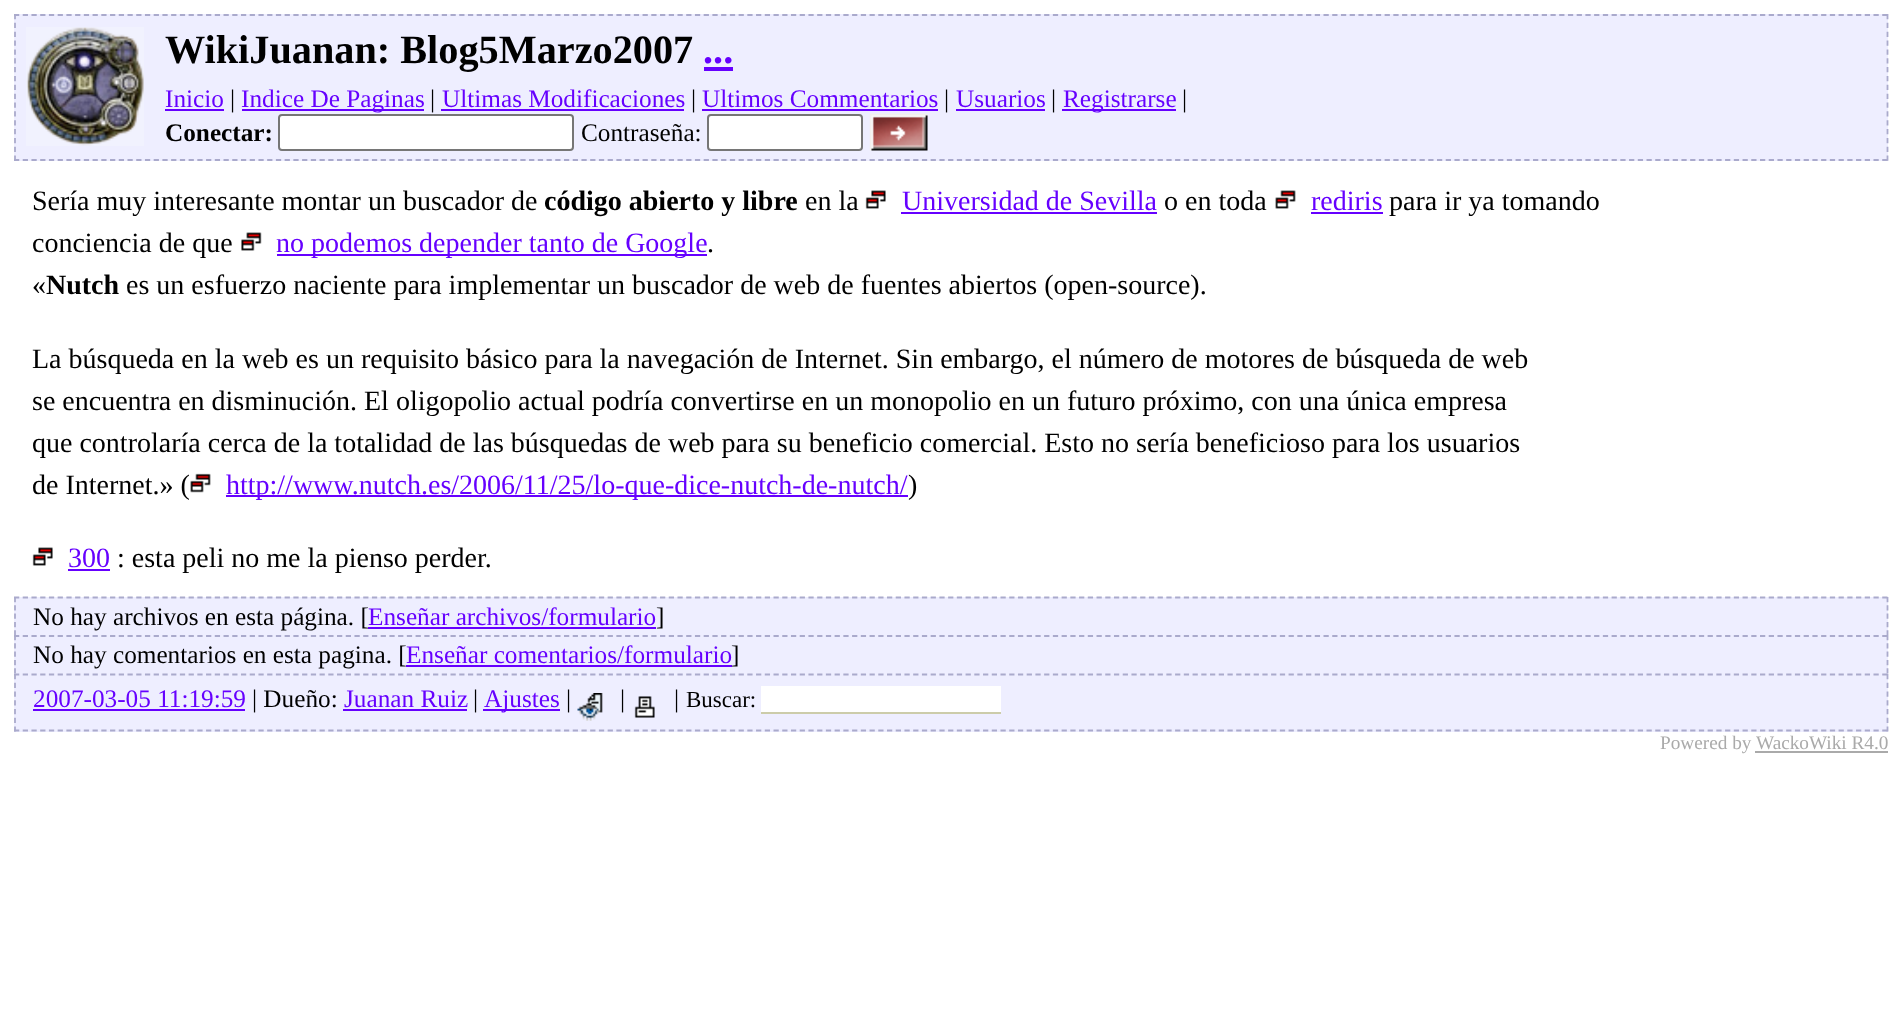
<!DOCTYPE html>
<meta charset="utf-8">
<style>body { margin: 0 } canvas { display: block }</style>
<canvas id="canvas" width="1901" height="1020"></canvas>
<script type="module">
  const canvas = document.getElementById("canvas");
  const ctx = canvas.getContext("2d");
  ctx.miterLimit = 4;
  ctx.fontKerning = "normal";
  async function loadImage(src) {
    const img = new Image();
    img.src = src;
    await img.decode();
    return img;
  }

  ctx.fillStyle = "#ffffff";
  ctx.fillRect(0, 0, 1901, 1020);
  ctx.fillStyle = "#eeeeff";
  ctx.fillRect(14, 14, 1874, 147);
  ctx.beginPath();
  ctx.moveTo(14, 15);
  ctx.lineTo(1888, 15);
  ctx.strokeStyle = "#aaaacc";
  ctx.lineWidth = 1.8;
  ctx.setLineDash([5.25, 3.48]);
  ctx.stroke();
  ctx.beginPath();
  ctx.moveTo(1887.5, 14);
  ctx.lineTo(1887.5, 161);
  ctx.setLineDash([5.25, 3.6]);
  ctx.stroke();
  ctx.beginPath();
  ctx.moveTo(14, 160);
  ctx.lineTo(1888, 160);
  ctx.setLineDash([5.25, 3.48]);
  ctx.stroke();
  ctx.beginPath();
  ctx.moveTo(15, 14);
  ctx.lineTo(15, 161);
  ctx.setLineDash([5.25, 3.6]);
  ctx.stroke();
  ctx.drawImage(await loadImage("img1.png"), 26, 27, 118, 119);
  ctx.font = "bold 40.25px Liberation Serif";
  ctx.fillStyle = "#000000";
  ctx.fillText("WikiJuanan: Blog5Marzo2007", 165, 63);
  ctx.fillStyle = "#6600ff";
  ctx.fillText("...", 703, 63);
  ctx.fillRect(704, 67, 29, 4);
  ctx.font = "25.25px Liberation Serif";
  ctx.fillText("Inicio", 165, 107);
  ctx.fillRect(165, 109, 59, 2);
  ctx.fillStyle = "#000000";
  ctx.fillText("|", 230, 107);
  ctx.fillStyle = "#6600ff";
  ctx.fillRect(242, 109, 182, 2);
  ctx.fillText("Indice De Paginas", 241, 107);
  ctx.fillStyle = "#000000";
  ctx.fillText("|", 430, 107);
  ctx.fillStyle = "#6600ff";
  ctx.fillText("Ultimas Modificaciones", 442, 107);
  ctx.fillRect(441, 109, 243, 2);
  ctx.fillStyle = "#000000";
  ctx.fillText("|", 691, 107);
  ctx.fillStyle = "#6600ff";
  ctx.fillText("Ultimos Commentarios", 702, 107);
  ctx.fillRect(702, 109, 236, 2);
  ctx.fillStyle = "#000000";
  ctx.fillText("|", 944, 107);
  ctx.fillStyle = "#6600ff";
  ctx.fillText("Usuarios", 956, 107);
  ctx.fillRect(956, 109, 89, 2);
  ctx.fillStyle = "#000000";
  ctx.fillText("|", 1051, 107);
  ctx.fillStyle = "#6600ff";
  ctx.fillRect(1062, 109, 114, 2);
  ctx.fillText("Registrarse", 1063, 107);
  ctx.fillStyle = "#000000";
  ctx.fillText("|", 1182, 107);
  ctx.font = "bold 25.25px Liberation Serif";
  ctx.fillText("Conectar:", 165, 141);
  ctx.fillStyle = "#ffffff";
  ctx.beginPath();
  ctx.roundRect(279, 115, 294, 35, 3);
  ctx.fill();
  ctx.strokeStyle = "#767676";
  ctx.lineWidth = 2;
  ctx.setLineDash([]);
  ctx.stroke();
  ctx.font = "25.25px Liberation Serif";
  ctx.fillStyle = "#000000";
  ctx.fillText("Contraseña:", 581, 141);
  ctx.fillStyle = "#ffffff";
  ctx.beginPath();
  ctx.roundRect(708, 115, 154, 35, 3);
  ctx.fill();
  ctx.stroke();
  ctx.drawImage(await loadImage("img2.png"), 869, 113, 59, 38);
  ctx.font = "28px Liberation Serif";
  ctx.fillStyle = "#000000";
  ctx.fillText("Sería muy interesante montar un buscador de", 32, 210);
  ctx.font = "bold 28px Liberation Serif";
  ctx.fillText("código abierto y libre", 544, 210);
  ctx.font = "28px Liberation Serif";
  ctx.fillText("en la", 805, 210);
  ctx.drawImage(await loadImage("img3.png"), 865, 190, 21, 19);
  ctx.fillStyle = "#6600ff";
  ctx.fillText("Universidad de Sevilla", 902, 210);
  ctx.fillRect(901, 212, 256, 2);
  ctx.fillStyle = "#000000";
  ctx.fillText("o en toda", 1164, 210);
  ctx.drawImage(await loadImage("img4.png"), 1275, 190, 21, 19);
  ctx.fillStyle = "#6600ff";
  ctx.fillText("rediris", 1311, 210);
  ctx.fillRect(1311, 212, 72, 2);
  ctx.fillStyle = "#000000";
  ctx.fillText("para ir ya tomando", 1389, 210);
  ctx.fillText("conciencia de que", 32, 252);
  ctx.drawImage(await loadImage("img5.png"), 241, 232, 21, 19);
  ctx.fillStyle = "#6600ff";
  ctx.fillRect(277, 254, 430, 2);
  ctx.fillText("no podemos depender tanto de Google", 276, 252);
  ctx.fillStyle = "#000000";
  ctx.fillText(".", 707, 252);
  ctx.fillText("«", 32, 294);
  ctx.font = "bold 28px Liberation Serif";
  ctx.fillText("Nutch", 46, 294);
  ctx.font = "28px Liberation Serif";
  ctx.fillText("es un esfuerzo naciente para implementar un buscador de web de fuentes abiertos (open-source).", 126, 294);
  ctx.fillText("La búsqueda en la web es un requisito básico para la navegación de Internet. Sin embargo, el número de motores de búsqueda de web", 32, 368);
  ctx.fillText("se encuentra en disminución. El oligopolio actual podría convertirse en un monopolio en un futuro próximo, con una única empresa", 32, 410);
  ctx.fillText("que controlaría cerca de la totalidad de las búsquedas de web para su beneficio comercial. Esto no sería beneficioso para los usuarios", 32, 452);
  ctx.fillText("de Internet.» (", 32, 494);
  ctx.drawImage(await loadImage("img6.png"), 190, 473, 21, 20);
  ctx.fillStyle = "#6600ff";
  ctx.fillRect(226, 495, 682, 2);
  ctx.fillText("http://www.nutch.es/2006/11/25/lo-que-dice-nutch-de-nutch/", 226, 494);
  ctx.fillStyle = "#000000";
  ctx.fillText(")", 908, 494);
  ctx.drawImage(await loadImage("img3.png"), 32, 547, 21, 19);
  ctx.fillStyle = "#6600ff";
  ctx.fillText("300", 68, 567);
  ctx.fillRect(68, 569, 42, 2);
  ctx.fillStyle = "#000000";
  ctx.fillText(": esta peli no me la pienso perder.", 117, 567);
  ctx.fillStyle = "#eeeeff";
  ctx.fillRect(14, 597, 1874, 135);
  ctx.beginPath();
  ctx.moveTo(14, 597.5);
  ctx.lineTo(1888, 597.5);
  ctx.strokeStyle = "#aaaacc";
  ctx.lineWidth = 1.8;
  ctx.setLineDash([5.25, 3.48]);
  ctx.stroke();
  ctx.beginPath();
  ctx.moveTo(1887.5, 597);
  ctx.lineTo(1887.5, 635);
  ctx.setLineDash([5.25, 3.06]);
  ctx.stroke();
  ctx.beginPath();
  ctx.moveTo(15, 597);
  ctx.lineTo(15, 635);
  ctx.stroke();
  ctx.font = "25.25px Liberation Serif";
  ctx.fillStyle = "#000000";
  ctx.fillText("No hay archivos en esta página. [", 33, 625);
  ctx.fillStyle = "#6600ff";
  ctx.fillText("Enseñar archivos/formulario", 368, 625);
  ctx.fillRect(368, 627, 288, 2);
  ctx.fillStyle = "#000000";
  ctx.fillText("]", 656, 625);
  ctx.beginPath();
  ctx.moveTo(14, 636);
  ctx.lineTo(1888, 636);
  ctx.setLineDash([5.25, 3.48]);
  ctx.stroke();
  ctx.beginPath();
  ctx.moveTo(1887.5, 635);
  ctx.lineTo(1887.5, 674);
  ctx.setLineDash([5.25, 3.06]);
  ctx.stroke();
  ctx.beginPath();
  ctx.moveTo(15, 635);
  ctx.lineTo(15, 674);
  ctx.stroke();
  ctx.fillText("No hay comentarios en esta pagina. [", 33, 663);
  ctx.fillStyle = "#6600ff";
  ctx.fillText("Enseñar comentarios/formulario", 406, 663);
  ctx.fillRect(406, 665, 326, 2);
  ctx.fillStyle = "#000000";
  ctx.fillText("]", 731, 663);
  ctx.beginPath();
  ctx.moveTo(14, 674.5);
  ctx.lineTo(1888, 674.5);
  ctx.setLineDash([5.25, 3.48]);
  ctx.stroke();
  ctx.beginPath();
  ctx.moveTo(1887.5, 674);
  ctx.lineTo(1887.5, 731.5);
  ctx.setLineDash([5.25, 3.5]);
  ctx.stroke();
  ctx.beginPath();
  ctx.moveTo(14, 730.5);
  ctx.lineTo(1888, 730.5);
  ctx.setLineDash([5.25, 3.48]);
  ctx.stroke();
  ctx.beginPath();
  ctx.moveTo(15, 674);
  ctx.lineTo(15, 731.5);
  ctx.setLineDash([5.25, 3.5]);
  ctx.stroke();
  ctx.fillStyle = "#6600ff";
  ctx.fillText("2007-03-05 11:19:59", 33, 707);
  ctx.fillRect(33, 709, 212, 2);
  ctx.fillStyle = "#000000";
  ctx.fillText("| Dueño:", 252, 707);
  ctx.fillStyle = "#6600ff";
  ctx.fillText("Juanan Ruiz", 344, 707);
  ctx.fillRect(343, 709, 124, 2);
  ctx.fillStyle = "#000000";
  ctx.fillText("|", 473, 707);
  ctx.fillStyle = "#6600ff";
  ctx.fillRect(483, 709, 77, 2);
  ctx.fillText("Ajustes", 484, 707);
  ctx.fillStyle = "#000000";
  ctx.fillText("|", 566, 707);
  ctx.drawImage(await loadImage("img7.png"), 577, 693, 26, 28);
  ctx.fillText("|", 620, 707);
  ctx.drawImage(await loadImage("img8.png"), 634, 696, 21, 22);
  ctx.fillText("|", 674, 707);
  ctx.font = "23px Liberation Serif";
  ctx.fillText("Buscar:", 686, 707);
  ctx.fillStyle = "#ffffff";
  ctx.fillRect(761, 686, 240, 26);
  ctx.fillStyle = "#ccccaa";
  ctx.fillRect(761, 712, 240, 2);
  ctx.font = "19.25px Liberation Serif";
  ctx.fillStyle = "#aaaaaa";
  ctx.fillText("Powered by", 1660, 749);
  ctx.fillText("WackoWiki R4.0", 1756, 749);
  ctx.fillRect(1755, 751, 133, 2);
</script>
